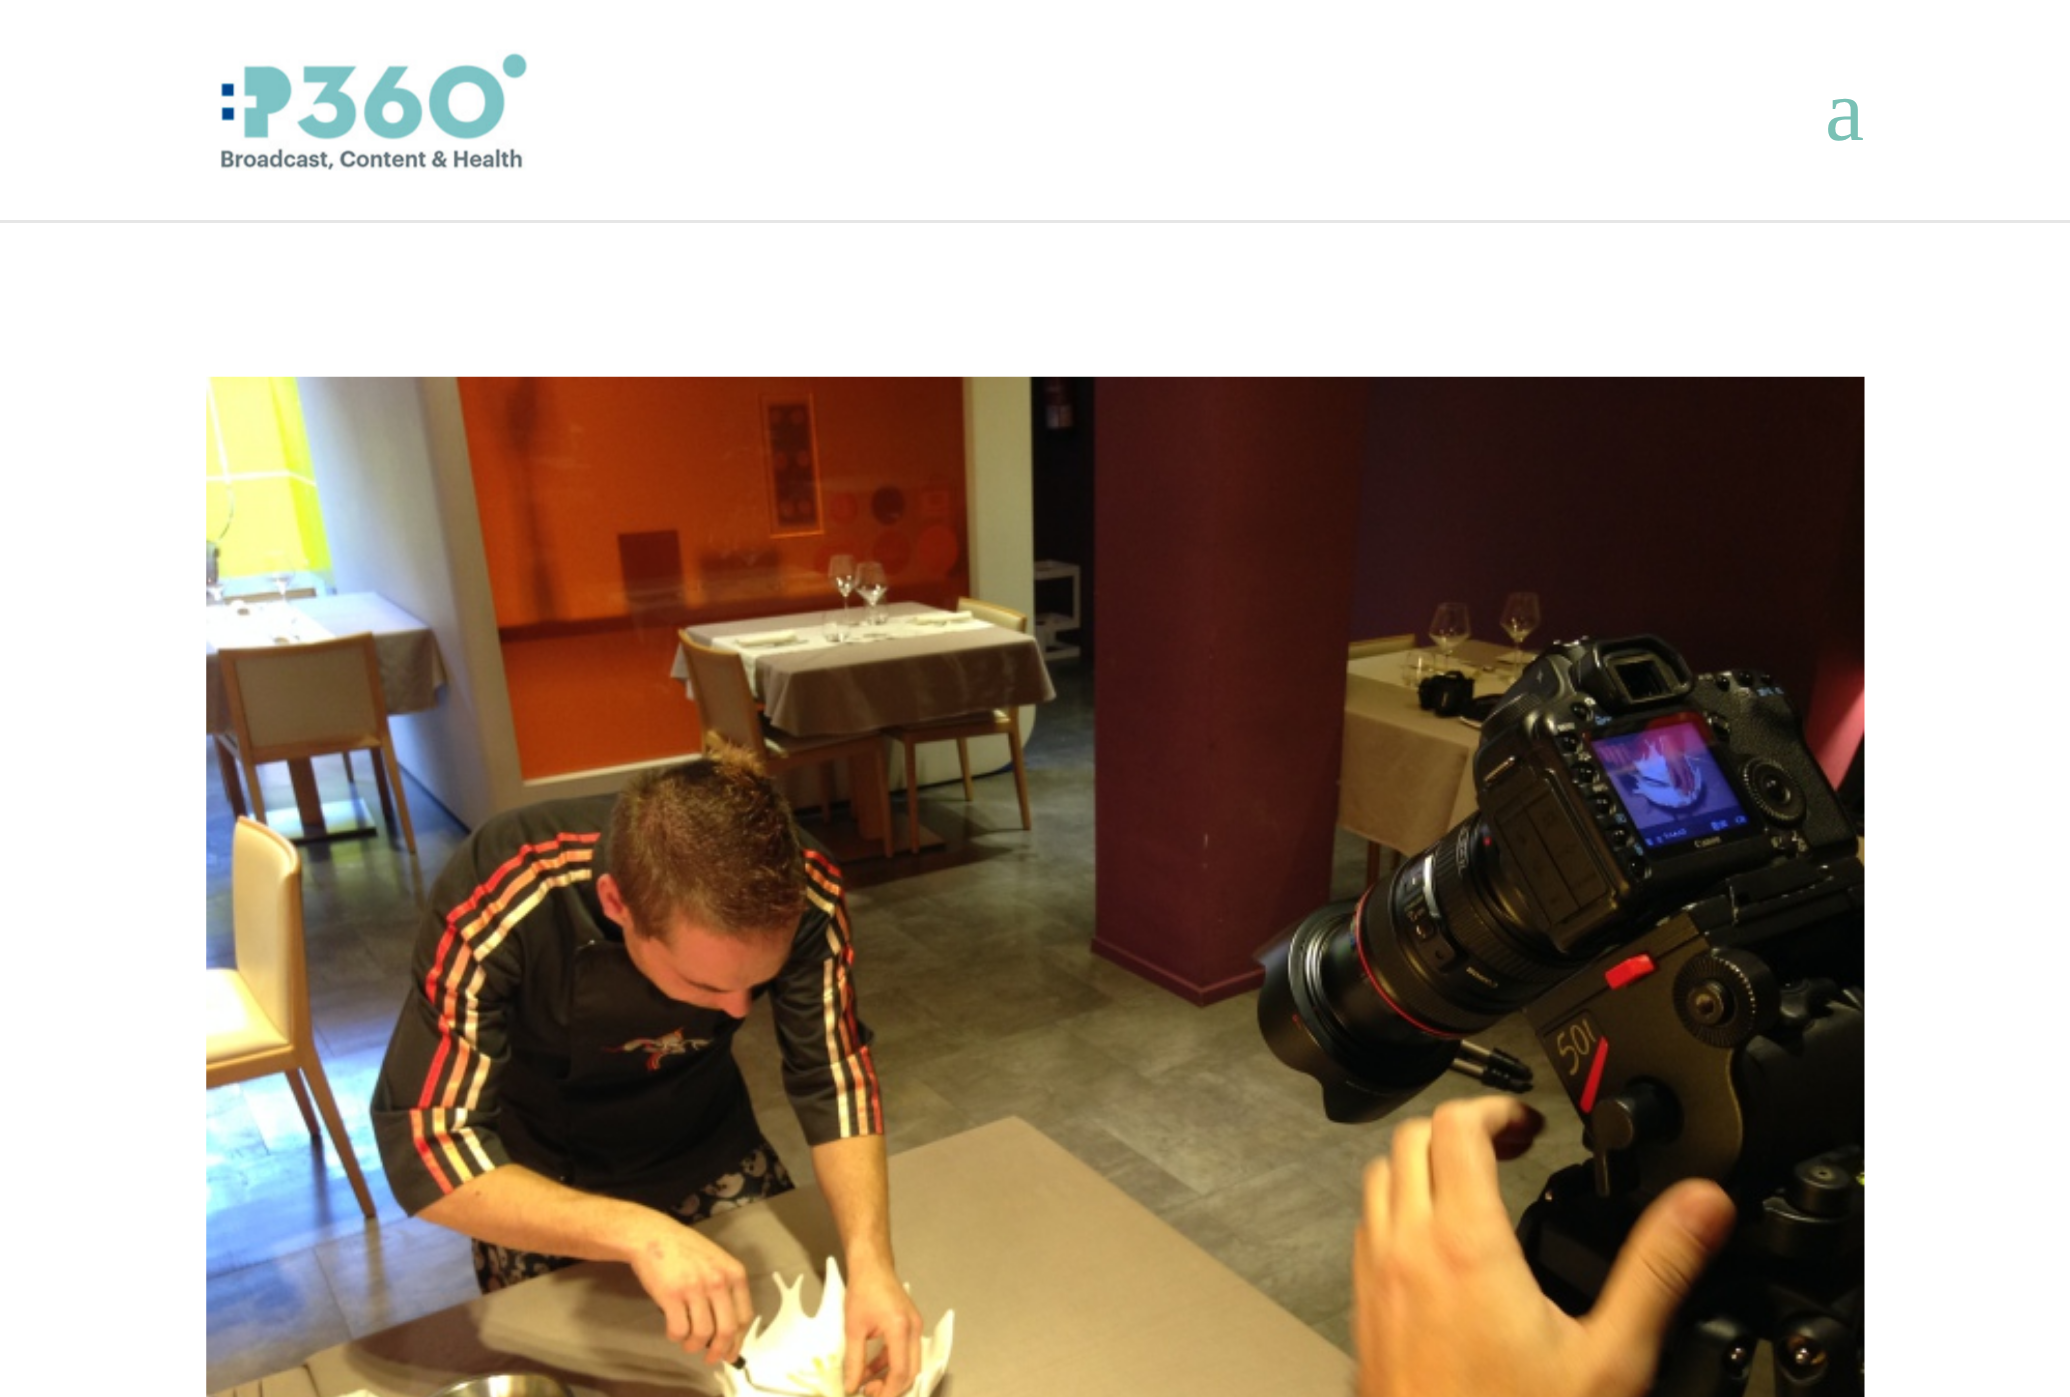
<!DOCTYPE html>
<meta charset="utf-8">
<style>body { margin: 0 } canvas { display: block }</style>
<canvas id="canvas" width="2070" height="1397"></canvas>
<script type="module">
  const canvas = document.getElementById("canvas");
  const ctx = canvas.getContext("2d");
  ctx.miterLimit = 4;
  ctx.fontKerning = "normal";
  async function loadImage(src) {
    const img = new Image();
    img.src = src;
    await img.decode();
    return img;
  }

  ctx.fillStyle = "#ffffff";
  ctx.fillRect(0, 0, 2070, 1397);
  ctx.fillStyle = "#e6e6e6";
  ctx.beginPath();
  ctx.moveTo(0, 220);
  ctx.lineTo(0, 223);
  ctx.lineTo(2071, 223);
  ctx.lineTo(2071, 3);
  ctx.lineTo(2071, 220);
  ctx.closePath();
  ctx.fill();
  ctx.drawImage(await loadImage("img1.png"), 220, 49, 308, 122);
  ctx.font = "88px Liberation Serif";
  ctx.fillStyle = "#79c1b5";
  ctx.fillText("a", 1825, 140);
  ctx.drawImage(await loadImage("img2.png"), 206, 376, 1659, 1021);
</script>
